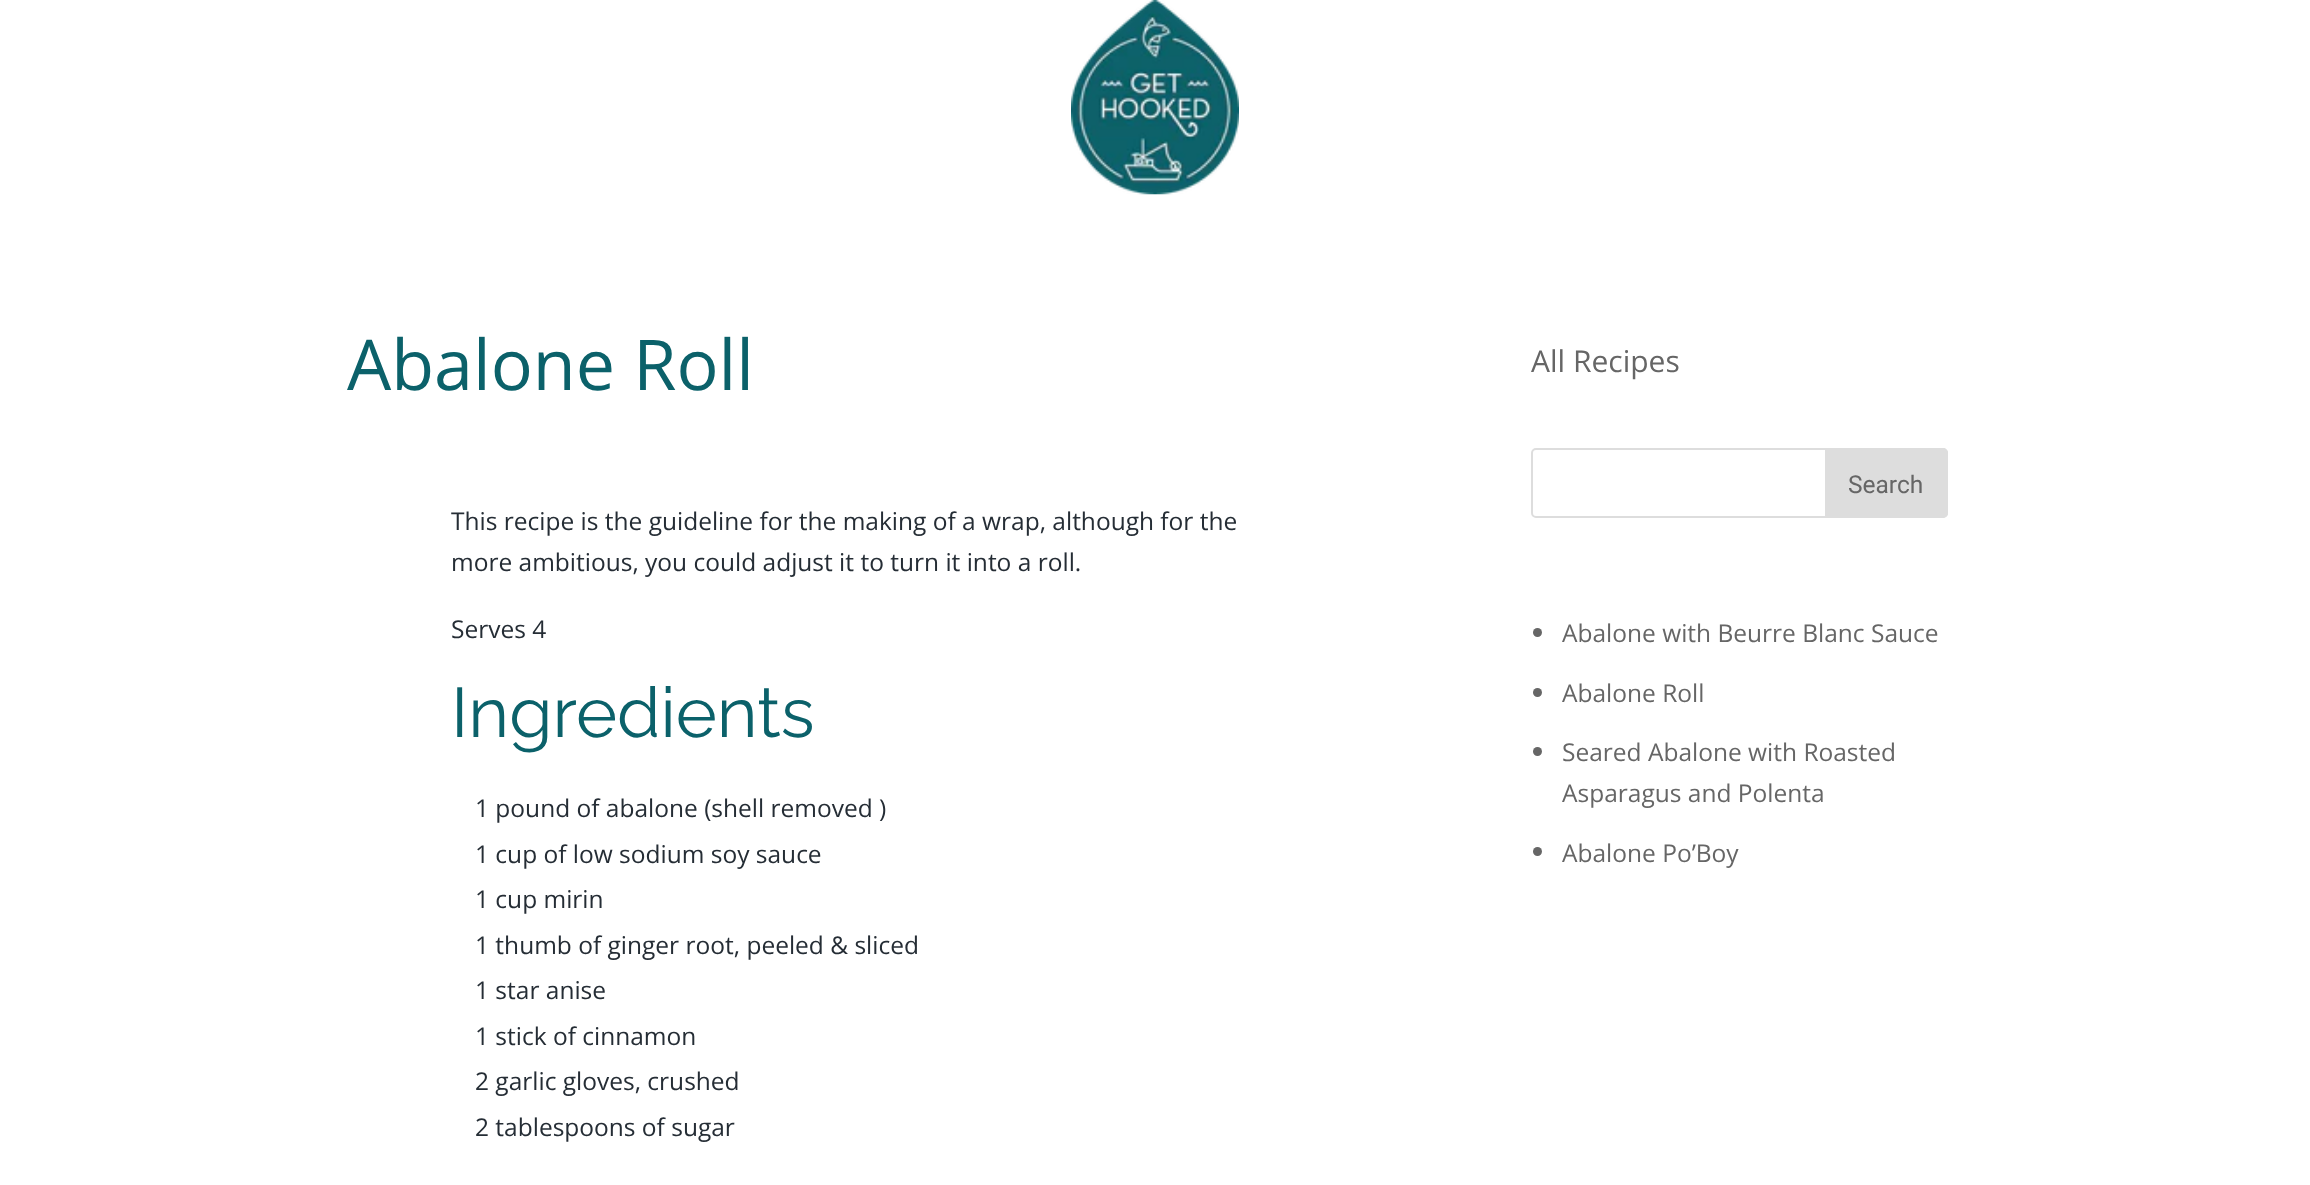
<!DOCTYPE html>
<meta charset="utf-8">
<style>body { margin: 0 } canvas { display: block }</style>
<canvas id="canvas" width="2310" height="1185"></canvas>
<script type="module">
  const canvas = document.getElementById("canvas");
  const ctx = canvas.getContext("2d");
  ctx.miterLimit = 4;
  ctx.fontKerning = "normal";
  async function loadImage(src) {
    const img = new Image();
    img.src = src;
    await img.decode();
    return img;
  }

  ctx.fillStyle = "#ffffff";
  ctx.fillRect(0, 0, 2310, 1185);
  ctx.drawImage(await loadImage("img1.png"), 1071, 0, 168, 195);
  ctx.font = "70px Open Sans";
  ctx.fillStyle = "#0b616a";
  ctx.fillText("Abalone Roll", 347, 390);
  ctx.font = "24.5px Open Sans";
  ctx.fillStyle = "#252d35";
  ctx.fillText("This recipe is the guideline for the making of a wrap, although for the", 451, 530);
  ctx.fillText("more ambitious, you could adjust it to turn it into a roll.", 451, 571);
  ctx.fillText("Serves 4", 451, 638);
  ctx.font = "70px Raleway";
  ctx.fillStyle = "#0b616a";
  ctx.fillText("Ingredients", 451, 737);
  ctx.font = "24.5px Open Sans";
  ctx.fillStyle = "#252d35";
  ctx.fillText("1 pound of abalone (shell removed )", 475, 817);
  ctx.fillText("1 cup of low sodium soy sauce", 475, 863);
  ctx.fillText("1 cup mirin", 475, 908);
  ctx.fillText("1 thumb of ginger root, peeled & sliced", 475, 954);
  ctx.fillText("1 star anise", 475, 999);
  ctx.fillText("1 stick of cinnamon", 475, 1045);
  ctx.fillText("2 garlic gloves, crushed", 475, 1090);
  ctx.fillText("2 tablespoons of sugar", 475, 1136);
  ctx.font = "30px Open Sans";
  ctx.fillStyle = "#666666";
  ctx.fillText("All Recipes", 1531, 372);
  ctx.beginPath();
  ctx.roundRect(1532, 449, 415, 68, 4);
  ctx.strokeStyle = "#dddddd";
  ctx.lineWidth = 2;
  ctx.stroke();
  ctx.fillStyle = "#dddddd";
  ctx.beginPath();
  ctx.roundRect(1826, 449, 121, 68, [0, 4, 4, 0]);
  ctx.fill();
  ctx.stroke();
  ctx.font = "24.5px Roboto";
  ctx.fillStyle = "#666666";
  ctx.fillText("Search", 1848, 493);
  ctx.beginPath();
  ctx.arc(1537.5, 632.5, 4.5, 0, Math.PI * 2);
  ctx.fill();
  ctx.font = "24.5px Open Sans";
  ctx.fillText("Abalone with Beurre Blanc Sauce", 1562, 642);
  ctx.beginPath();
  ctx.arc(1537.5, 692.5, 4.5, 0, Math.PI * 2);
  ctx.fill();
  ctx.fillText("Abalone Roll", 1562, 702);
  ctx.beginPath();
  ctx.arc(1537.5, 751.5, 4.5, 0, Math.PI * 2);
  ctx.fill();
  ctx.fillText("Seared Abalone with Roasted", 1562, 761);
  ctx.fillText("Asparagus and Polenta", 1562, 802);
  ctx.beginPath();
  ctx.arc(1537.5, 851.5, 4.5, 0, Math.PI * 2);
  ctx.fill();
  ctx.fillText("Abalone Po’Boy", 1562, 862);
</script>
